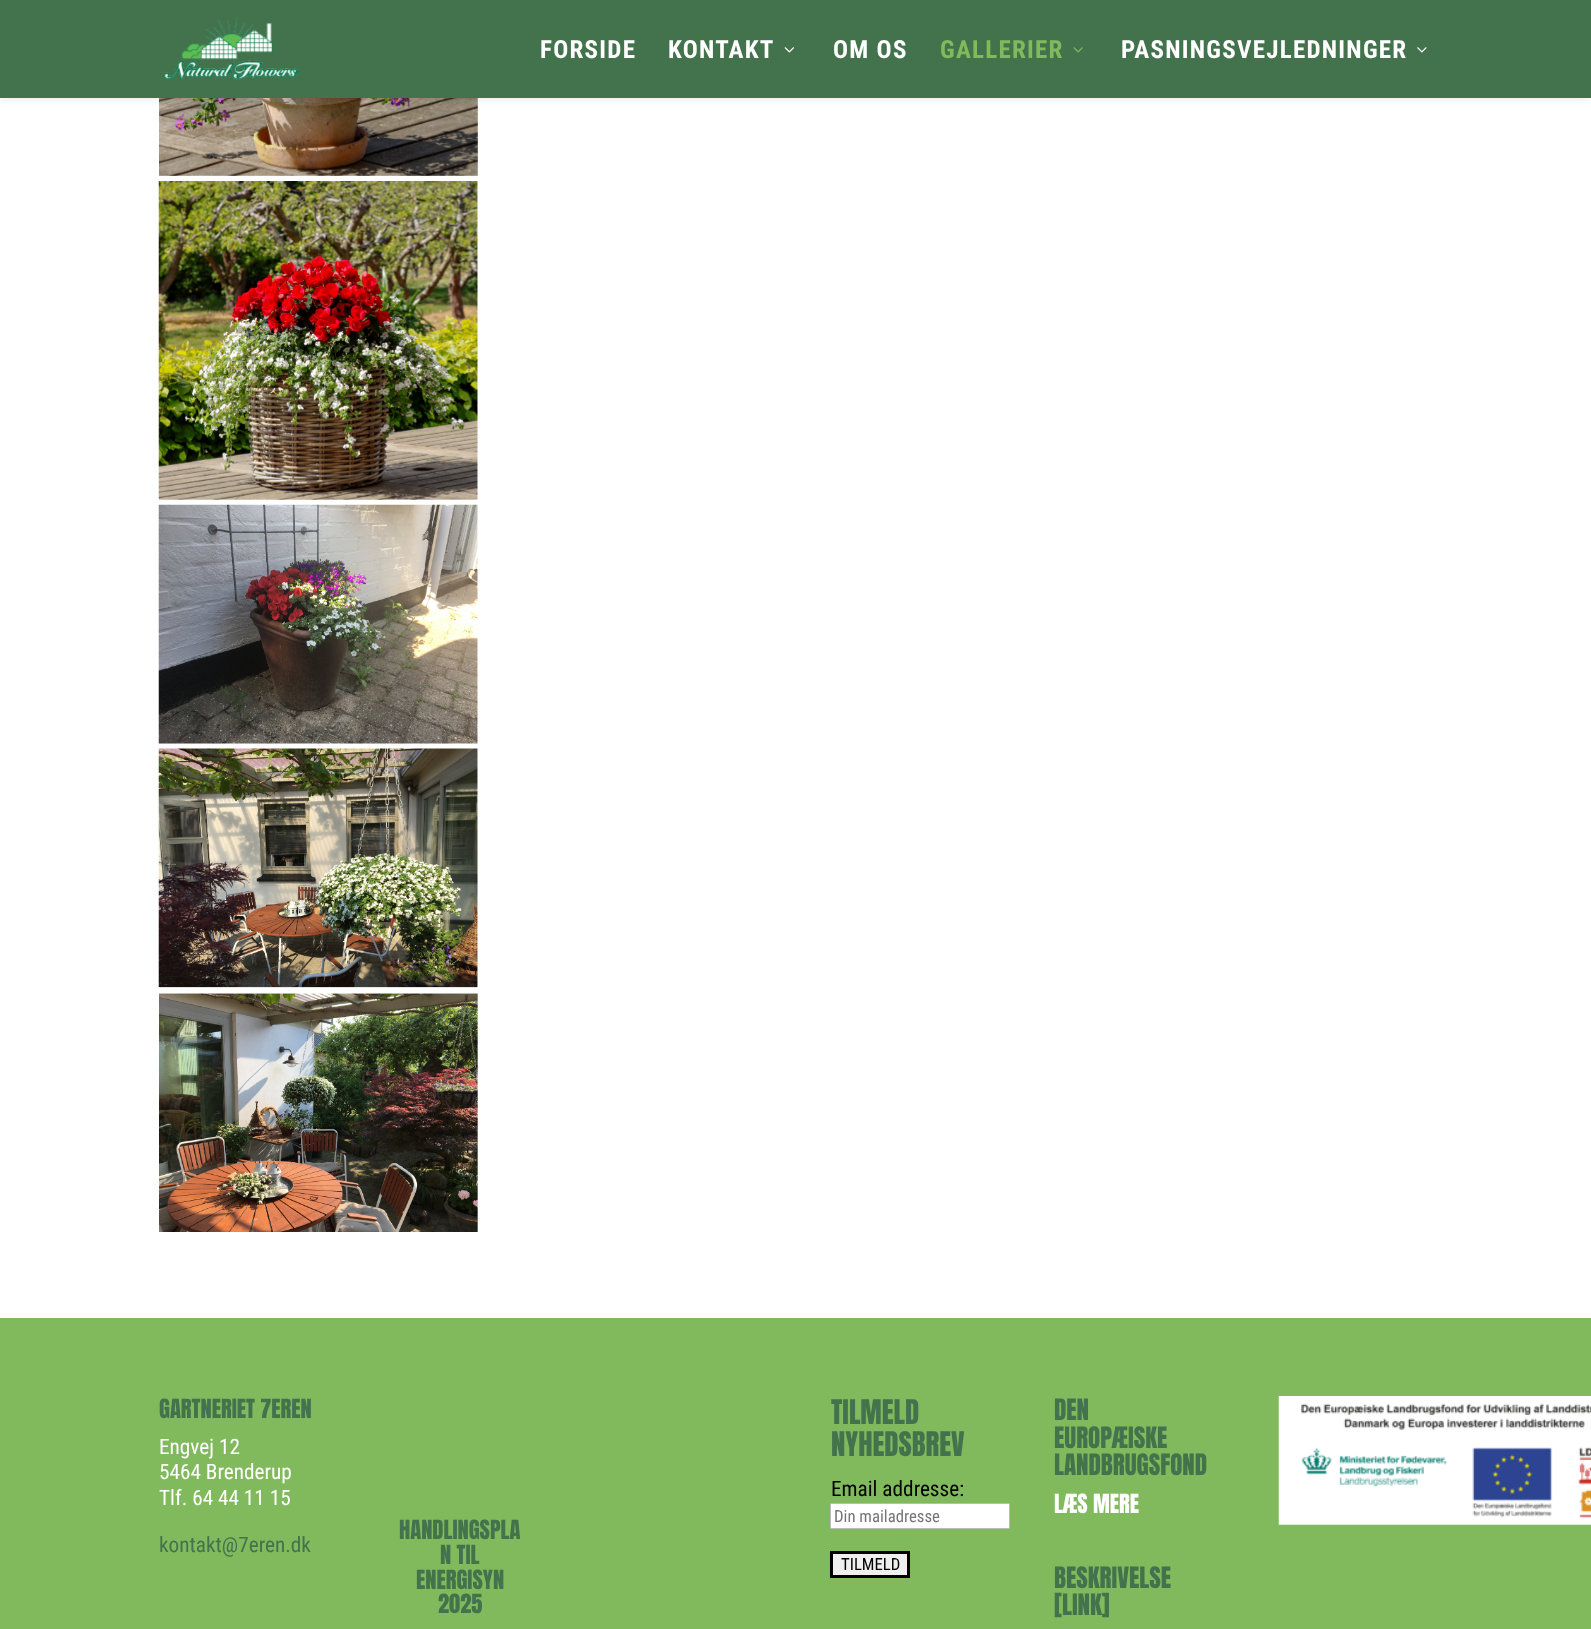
<!DOCTYPE html>
<meta charset="utf-8">
<style>body { margin: 0 } canvas { display: block }</style>
<canvas id="canvas" width="1591" height="1629"></canvas>
<script type="module">
  const canvas = document.getElementById("canvas");
  const ctx = canvas.getContext("2d");
  ctx.miterLimit = 4;
  ctx.fontKerning = "normal";
  async function loadImage(src) {
    const img = new Image();
    img.src = src;
    await img.decode();
    return img;
  }

  ctx.fillStyle = "#ffffff";
  ctx.fillRect(0, 0, 1591, 1629);
  ctx.drawImage(await loadImage("img5.png"), 159, 98, 319, 78);
  ctx.fillStyle = "rgba(0, 0, 0, 0.1)";
  ctx.filter = "blur(4.5px)";
  ctx.beginPath();
  ctx.rect(0, 0, 1591, 98);
  ctx.fill();
  ctx.filter = "none";
  ctx.fillStyle = "#42734c";
  ctx.fillRect(0, 0, 1591, 98);
  ctx.drawImage(await loadImage("img1.png"), 163, 17, 137, 64);
  ctx.letterSpacing = "1.25px";
  ctx.font = "bold 25px Roboto Condensed";
  ctx.fillStyle = "#ffffff";
  ctx.fillText("FORSIDE", 540, 58);
  ctx.fillText("KONTAKT", 668, 58);
  ctx.drawImage(await loadImage("img2.png"), 784, 47, 10, 6);
  ctx.fillText("OM OS", 833, 58);
  ctx.fillStyle = "#81ba5d";
  ctx.fillText("GALLERIER", 940, 58);
  ctx.drawImage(await loadImage("img3.png"), 1073, 47, 10, 6);
  ctx.fillStyle = "#ffffff";
  ctx.fillText("PASNINGSVEJLEDNINGER", 1121, 58);
  ctx.drawImage(await loadImage("img4.png"), 1417, 47, 10, 6);
  ctx.drawImage(await loadImage("img6.png"), 158, 181, 320, 319);
  ctx.drawImage(await loadImage("img7.png"), 158, 504, 320, 240);
  ctx.drawImage(await loadImage("img8.png"), 158, 748, 320, 240);
  ctx.drawImage(await loadImage("img9.png"), 159, 993, 319, 239);
  ctx.fillStyle = "#81ba5d";
  ctx.fillRect(0, 1318, 1591, 311);
  ctx.letterSpacing = "0px";
  ctx.font = "22.5px Anton";
  ctx.fillStyle = "#42734c";
  ctx.fillText("GARTNERIET 7EREN", 159, 1418);
  ctx.font = "21.25px Roboto Condensed";
  ctx.fillStyle = "#ffffff";
  ctx.fillText("Engvej 12", 159, 1454);
  ctx.fillText("5464 Brenderup", 159, 1479);
  ctx.fillText("Tlf. 64 44 11 15", 159, 1505);
  ctx.fillStyle = "#42734c";
  ctx.fillText("kontakt@7eren.dk", 159, 1552);
  ctx.font = "22.5px Anton";
  ctx.fillText("HANDLINGSPLA", 399, 1539);
  ctx.fillText("N TIL", 440, 1564);
  ctx.fillText("ENERGISYN", 416, 1589);
  ctx.fillText("2025", 438, 1613);
  ctx.font = "28.75px Anton";
  ctx.fillText("TILMELD", 831, 1424);
  ctx.fillText("NYHEDSBREV", 831, 1456);
  ctx.font = "21.25px Roboto Condensed";
  ctx.fillStyle = "#000000";
  ctx.fillText("Email addresse:", 831, 1496);
  ctx.fillStyle = "#ffffff";
  ctx.beginPath();
  ctx.rect(830.5, 1503.5, 179, 25);
  ctx.fill();
  ctx.strokeStyle = "#bbbbbb";
  ctx.stroke();
  ctx.font = "16.75px Roboto Condensed";
  ctx.fillStyle = "#757575";
  ctx.fillText("Din mailadresse", 834, 1522);
  ctx.fillStyle = "#efefef";
  ctx.beginPath();
  ctx.rect(831.5, 1552.5, 77, 24);
  ctx.fill();
  ctx.strokeStyle = "#000000";
  ctx.lineWidth = 3;
  ctx.stroke();
  ctx.fillStyle = "#000000";
  ctx.fillText("TILMELD", 841, 1570);
  ctx.font = "25px Anton";
  ctx.fillStyle = "#42734c";
  ctx.fillText("DEN", 1054, 1420);
  ctx.fillText("EUROPÆISKE", 1054, 1448);
  ctx.fillText("LANDBRUGSFOND", 1054, 1475);
  ctx.font = "22.5px Anton";
  ctx.fillStyle = "#ffffff";
  ctx.fillText("LÆS MERE", 1054, 1513);
  ctx.font = "25px Anton";
  ctx.fillStyle = "#42734c";
  ctx.fillText("BESKRIVELSE", 1054, 1588);
  ctx.fillText("[LINK]", 1054, 1615);
  ctx.drawImage(await loadImage("img10.png"), 1278, 1396, 313, 129);
</script>
